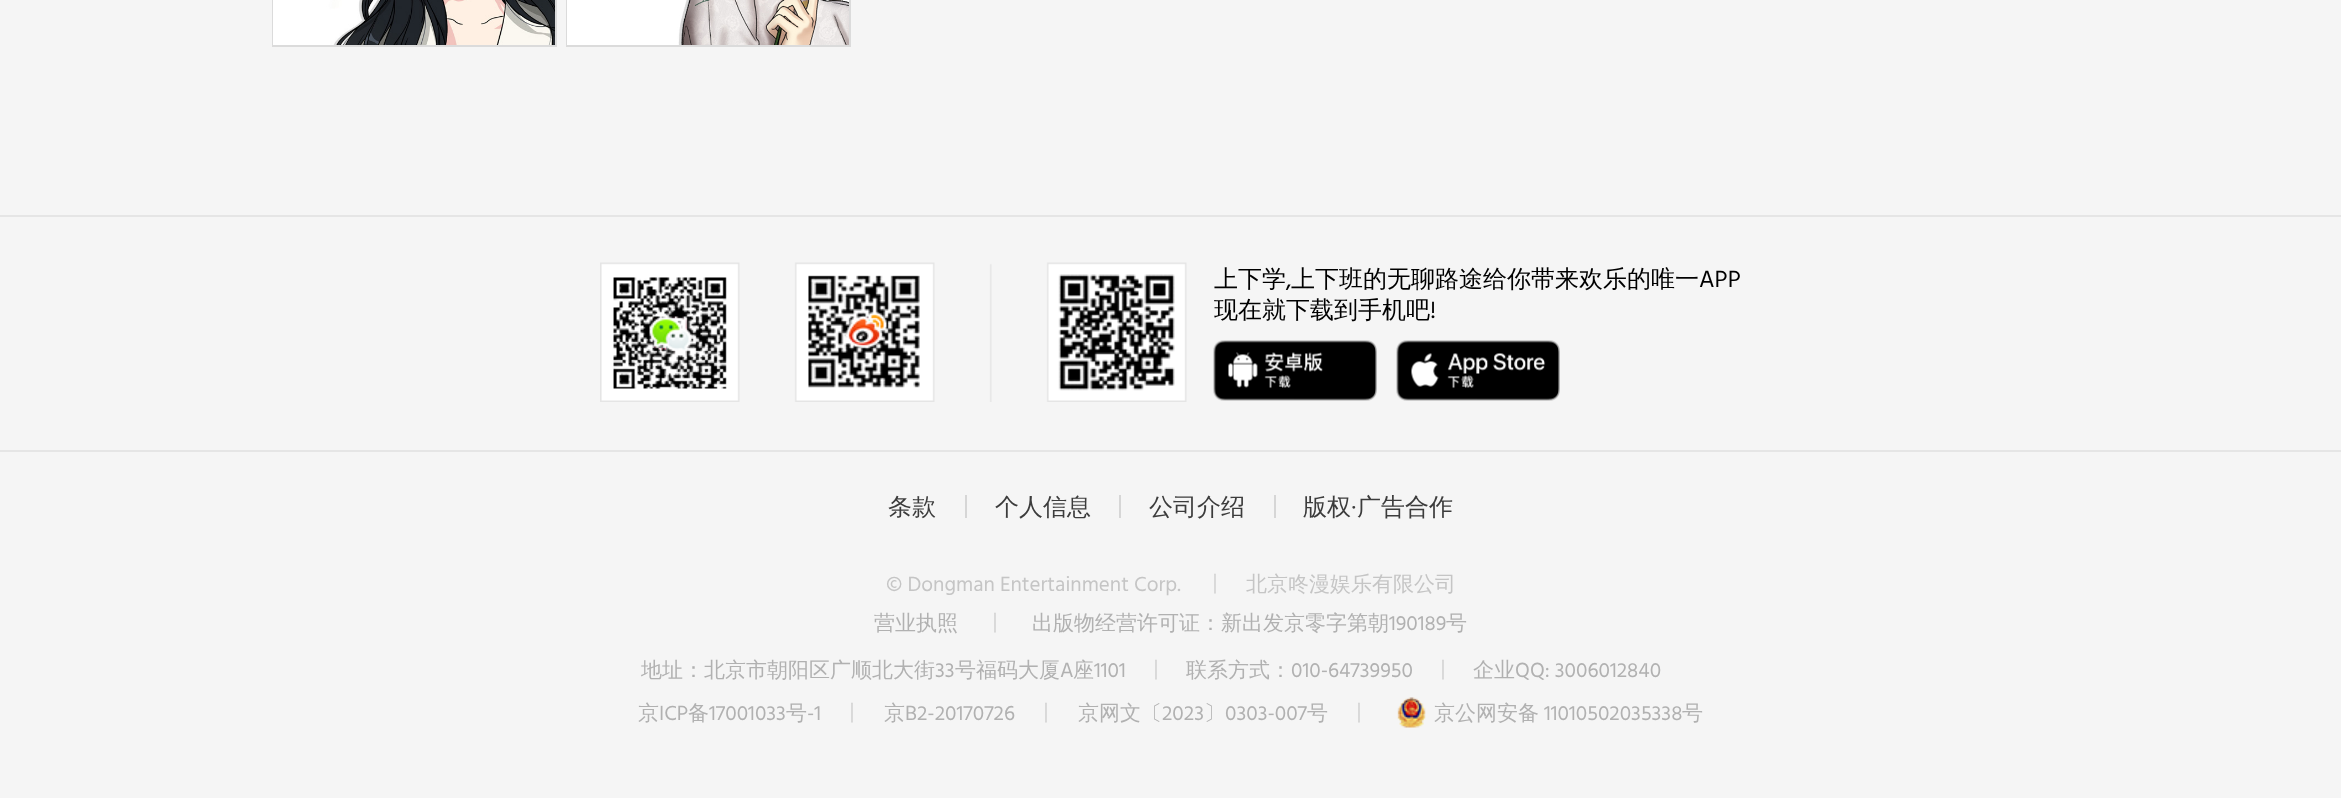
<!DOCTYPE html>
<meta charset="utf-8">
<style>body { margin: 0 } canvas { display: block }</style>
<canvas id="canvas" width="2341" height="798"></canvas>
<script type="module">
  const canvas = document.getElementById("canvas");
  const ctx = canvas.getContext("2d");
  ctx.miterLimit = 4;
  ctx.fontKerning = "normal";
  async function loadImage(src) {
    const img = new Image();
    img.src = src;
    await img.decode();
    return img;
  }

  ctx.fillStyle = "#f5f5f5";
  ctx.fillRect(0, 0, 2341, 798);
  ctx.strokeStyle = "#dbdbdb";
  ctx.lineWidth = 2;
  ctx.strokeRect(273, -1, 283, 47);
  ctx.drawImage(await loadImage("img1.png"), 273, 0, 282, 45);
  ctx.strokeRect(567, -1, 283, 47);
  ctx.drawImage(await loadImage("img2.png"), 567, 0, 282, 45);
  ctx.fillStyle = "#e5e5e5";
  ctx.fillRect(0, 215, 2341, 2);
  ctx.fillRect(0, 450, 2341, 2);
  ctx.drawImage(await loadImage("img3.png"), 600, 262, 587, 140);
  ctx.font = "500 24px WenQuanYi Zen Hei";
  ctx.fillStyle = "#000000";
  ctx.fillText("上下学", 1214, 287);
  ctx.font = "24px Hind";
  ctx.fillText(",", 1286, 287);
  ctx.font = "500 24px WenQuanYi Zen Hei";
  ctx.fillText("上下班的无聊路途给你带来欢乐的唯一", 1291, 287);
  ctx.font = "24px Hind";
  ctx.fillText("APP", 1699, 287);
  ctx.font = "500 24px WenQuanYi Zen Hei";
  ctx.fillText("现在就下载到手机吧", 1214, 318);
  ctx.font = "24px Hind";
  ctx.fillText("!", 1430, 318);
  ctx.drawImage(await loadImage("img4.png"), 1213, 340, 164, 61);
  ctx.drawImage(await loadImage("img5.png"), 1396, 340, 164, 61);
  ctx.font = "500 24px WenQuanYi Zen Hei";
  ctx.fillStyle = "#3c3c3c";
  ctx.fillText("条款", 888, 515);
  ctx.fillStyle = "#d6d6d6";
  ctx.fillRect(965, 495, 2, 23);
  ctx.fillStyle = "#3c3c3c";
  ctx.fillText("个人信息", 995, 515);
  ctx.fillStyle = "#d6d6d6";
  ctx.fillRect(1119, 495, 2, 23);
  ctx.fillStyle = "#3c3c3c";
  ctx.fillText("公司介绍", 1149, 515);
  ctx.fillStyle = "#d6d6d6";
  ctx.fillRect(1274, 495, 2, 23);
  ctx.fillStyle = "#3c3c3c";
  ctx.fillText("版权", 1303, 515);
  ctx.font = "24px Hind";
  ctx.fillText("·", 1351, 515);
  ctx.font = "500 24px WenQuanYi Zen Hei";
  ctx.fillText("广告合作", 1357, 515);
  ctx.font = "21px Hind";
  ctx.fillStyle = "#c5c5c5";
  ctx.fillText("© Dongman Entertainment Corp.", 886, 591);
  ctx.font = "500 21px WenQuanYi Zen Hei";
  ctx.fillStyle = "#d4d4d4";
  ctx.fillText("丨", 1205, 591);
  ctx.fillStyle = "#c5c5c5";
  ctx.fillText("北京咚漫娱乐有限公司", 1246, 591);
  ctx.fillStyle = "#b1b1b1";
  ctx.fillText("营业执照", 874, 630);
  ctx.fillStyle = "#d4d4d4";
  ctx.fillText("丨", 985, 630);
  ctx.fillStyle = "#b1b1b1";
  ctx.fillText("出版物经营许可证：新出发京零字第朝", 1032, 630);
  ctx.font = "21px Hind";
  ctx.fillText("190189", 1389, 630);
  ctx.font = "500 21px WenQuanYi Zen Hei";
  ctx.fillText("号", 1446, 630);
  ctx.fillText("地址：北京市朝阳区广顺北大街", 641, 677);
  ctx.font = "21px Hind";
  ctx.fillText("33", 935, 677);
  ctx.font = "500 21px WenQuanYi Zen Hei";
  ctx.fillText("号福码大厦", 955, 677);
  ctx.font = "21px Hind";
  ctx.fillText("A", 1060, 677);
  ctx.font = "500 21px WenQuanYi Zen Hei";
  ctx.fillText("座", 1073, 677);
  ctx.font = "21px Hind";
  ctx.fillText("1101", 1094, 677);
  ctx.font = "500 21px WenQuanYi Zen Hei";
  ctx.fillStyle = "#d4d4d4";
  ctx.fillText("丨", 1146, 677);
  ctx.fillStyle = "#b1b1b1";
  ctx.fillText("联系方式：", 1186, 677);
  ctx.font = "21px Hind";
  ctx.fillText("010-64739950", 1291, 677);
  ctx.font = "500 21px WenQuanYi Zen Hei";
  ctx.fillStyle = "#d4d4d4";
  ctx.fillText("丨", 1433, 677);
  ctx.fillStyle = "#b1b1b1";
  ctx.fillText("企业", 1473, 677);
  ctx.font = "21px Hind";
  ctx.fillText("QQ: 3006012840", 1515, 677);
  ctx.font = "500 21px WenQuanYi Zen Hei";
  ctx.fillText("京", 638, 720);
  ctx.font = "21px Hind";
  ctx.fillText("ICP", 659, 720);
  ctx.font = "500 21px WenQuanYi Zen Hei";
  ctx.fillText("备", 688, 720);
  ctx.font = "21px Hind";
  ctx.fillText("17001033", 709, 720);
  ctx.font = "500 21px WenQuanYi Zen Hei";
  ctx.fillText("号", 786, 720);
  ctx.font = "21px Hind";
  ctx.fillText("-1", 807, 720);
  ctx.font = "500 21px WenQuanYi Zen Hei";
  ctx.fillStyle = "#d4d4d4";
  ctx.fillText("丨", 842, 720);
  ctx.fillStyle = "#b1b1b1";
  ctx.fillText("京", 884, 720);
  ctx.font = "21px Hind";
  ctx.fillText("B2-20170726", 905, 720);
  ctx.font = "500 21px WenQuanYi Zen Hei";
  ctx.fillStyle = "#d4d4d4";
  ctx.fillText("丨", 1036, 720);
  ctx.fillStyle = "#b1b1b1";
  ctx.fillText("京网文〔", 1078, 720);
  ctx.font = "21px Hind";
  ctx.fillText("2023", 1162, 720);
  ctx.font = "500 21px WenQuanYi Zen Hei";
  ctx.fillText("〕", 1204, 720);
  ctx.font = "21px Hind";
  ctx.fillText("0303-007", 1225, 720);
  ctx.font = "500 21px WenQuanYi Zen Hei";
  ctx.fillText("号", 1307, 720);
  ctx.fillStyle = "#d4d4d4";
  ctx.fillText("丨", 1349, 720);
  ctx.drawImage(await loadImage("img6.png"), 1397, 697, 29, 31);
  ctx.fillStyle = "#b1b1b1";
  ctx.fillText("京公网安备", 1434, 720);
  ctx.font = "21px Hind";
  ctx.fillText("11010502035338", 1544, 720);
  ctx.font = "500 21px WenQuanYi Zen Hei";
  ctx.fillText("号", 1682, 720);
</script>
